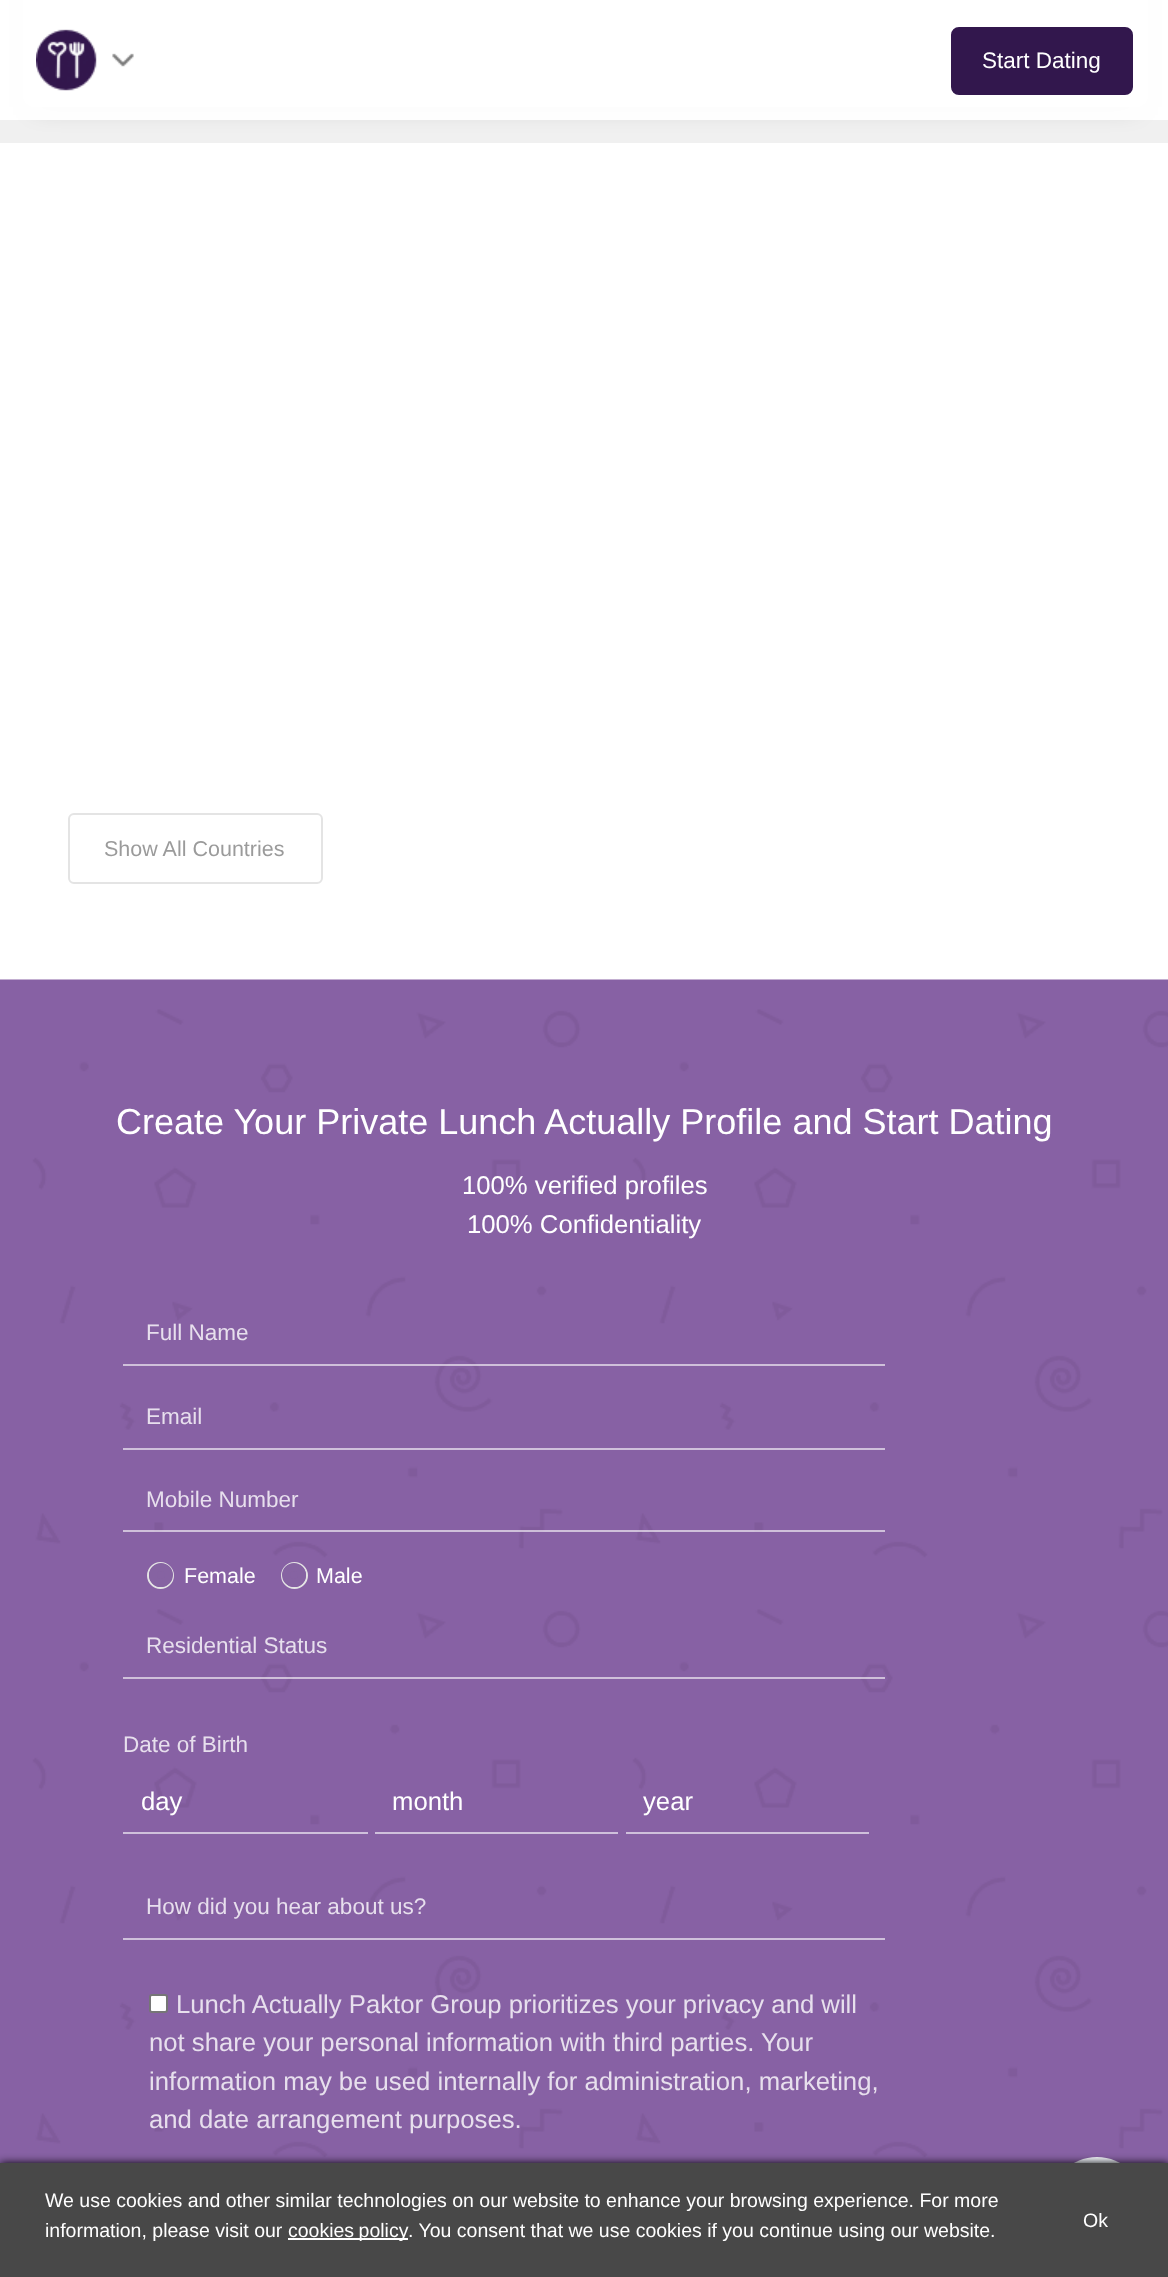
<!DOCTYPE html>
<meta charset="utf-8">
<style>body { margin: 0 } canvas { display: block }</style>
<canvas id="canvas" width="1168" height="2277"></canvas>
<script type="module">
  const canvas = document.getElementById("canvas");
  const ctx = canvas.getContext("2d");
  ctx.miterLimit = 4;
  ctx.fontKerning = "normal";
  async function loadImage(src) {
    const img = new Image();
    img.src = src;
    await img.decode();
    return img;
  }

  ctx.fillStyle = "#ffffff";
  ctx.fillRect(0, 0, 1168, 2277);
  ctx.fillStyle = "#f0f0f0";
  ctx.fillRect(0, 0, 1168, 143);
  ctx.fillStyle = "rgba(0, 0, 0, 0.2)";
  ctx.filter = "blur(12px)";
  ctx.beginPath();
  ctx.rect(35, -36, 1101, 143);
  ctx.fill();
  ctx.filter = "none";
  ctx.fillStyle = "#ffffff";
  ctx.beginPath();
  ctx.roundRect(23, -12, 1125, 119, 12);
  ctx.fill();
  ctx.fillStyle = "rgba(255, 255, 255, 0.94)";
  ctx.fillRect(0, 0, 1168, 120);
  ctx.drawImage(await loadImage("img1.png"), 36, 29, 98, 62);
  ctx.fillStyle = "#32174d";
  ctx.beginPath();
  ctx.roundRect(952, 28, 180, 66, 7);
  ctx.fill();
  ctx.strokeStyle = "#32174d";
  ctx.lineWidth = 2;
  ctx.stroke();
  ctx.font = "22.5px Liberation Sans";
  ctx.fillStyle = "#ffffff";
  ctx.fillText("Start Dating", 982, 68);
  ctx.beginPath();
  ctx.roundRect(69, 814, 253, 69, 5);
  ctx.strokeStyle = "#e4e4e4";
  ctx.stroke();
  ctx.font = "21.5px Liberation Sans";
  ctx.fillStyle = "#9b9b9b";
  ctx.fillText("Show All Countries", 104, 856);
  ctx.drawImage(await loadImage("img2.png"), 0, 979, 1168, 1184);
  ctx.font = "36px Liberation Sans";
  ctx.fillStyle = "#ffffff";
  ctx.fillText("Create Your Private Lunch Actually Profile and Start Dating", 116, 1134);
  ctx.font = "25.7px Liberation Sans";
  ctx.fillText("100% verified profiles", 462, 1194);
  ctx.fillText("100% Confidentiality", 467, 1233);
  ctx.font = "22.5px Liberation Sans";
  ctx.fillStyle = "#e7dfed";
  ctx.fillText("Full Name", 146, 1340);
  ctx.fillStyle = "rgba(255, 255, 255, 0.6)";
  ctx.fillRect(123, 1364, 762, 2);
  ctx.fillStyle = "#e7dfed";
  ctx.fillText("Email", 146, 1424);
  ctx.fillStyle = "#cfc0db";
  ctx.fillRect(123, 1448, 762, 2);
  ctx.fillStyle = "#e7dfed";
  ctx.fillText("Mobile Number", 146, 1507);
  ctx.fillStyle = "rgba(255, 255, 255, 0.6)";
  ctx.fillRect(123, 1530, 762, 2);
  ctx.beginPath();
  ctx.arc(160.5, 1575.5, 12.5, 0, Math.PI * 2);
  ctx.stroke();
  ctx.fillStyle = "#8663a2";
  ctx.beginPath();
  ctx.arc(161, 1575, 8, 0, Math.PI * 2);
  ctx.fill();
  ctx.strokeStyle = "#8663a2";
  ctx.lineWidth = 8;
  ctx.stroke();
  ctx.font = "21.5px Liberation Sans";
  ctx.fillStyle = "#ffffff";
  ctx.fillText("Female", 184, 1583);
  ctx.beginPath();
  ctx.arc(294.5, 1575.5, 12.5, 0, Math.PI * 2);
  ctx.strokeStyle = "#e4e4e4";
  ctx.lineWidth = 2;
  ctx.stroke();
  ctx.fillStyle = "#8663a2";
  ctx.beginPath();
  ctx.arc(294, 1575, 8, 0, Math.PI * 2);
  ctx.fill();
  ctx.strokeStyle = "#8663a2";
  ctx.lineWidth = 8;
  ctx.stroke();
  ctx.fillStyle = "#ffffff";
  ctx.fillText("Male", 316, 1583);
  ctx.font = "22.5px Liberation Sans";
  ctx.fillStyle = "#e7dfed";
  ctx.fillText("Residential Status", 146, 1653);
  ctx.fillStyle = "rgba(255, 255, 255, 0.6)";
  ctx.fillRect(123, 1677, 762, 2);
  ctx.fillStyle = "#e7dfed";
  ctx.fillText("Date of Birth", 123, 1752);
  ctx.fillStyle = "#cfc0db";
  ctx.fillRect(123, 1832, 245, 2);
  ctx.font = "25.7px Liberation Sans";
  ctx.fillStyle = "#ffffff";
  ctx.fillText("day", 141, 1810);
  ctx.fillStyle = "#cfc0db";
  ctx.fillRect(375, 1832, 243, 2);
  ctx.fillStyle = "#ffffff";
  ctx.fillText("month", 392, 1810);
  ctx.fillStyle = "#cfc0db";
  ctx.fillRect(626, 1832, 243, 2);
  ctx.fillStyle = "#ffffff";
  ctx.fillText("year", 643, 1810);
  ctx.font = "22.5px Liberation Sans";
  ctx.fillStyle = "#e7dfed";
  ctx.fillText("How did you hear about us?", 146, 1914);
  ctx.fillStyle = "#cfc0db";
  ctx.fillRect(123, 1938, 762, 2);
  ctx.fillStyle = "#ffffff";
  ctx.beginPath();
  ctx.roundRect(150, 1995, 17, 17, 2);
  ctx.fill();
  ctx.strokeStyle = "#767676";
  ctx.lineWidth = 2;
  ctx.stroke();
  ctx.font = "25.7px Liberation Sans";
  ctx.fillStyle = "#e7dfed";
  ctx.fillText("Lunch Actually Paktor Group prioritizes your privacy and will", 176, 2013);
  ctx.fillText("not share your personal information with third parties. Your", 149, 2051);
  ctx.fillText("information may be used internally for administration, marketing,", 149, 2090);
  ctx.fillText("and date arrangement purposes.", 149, 2128);
  ctx.fillStyle = "#f3f6fc";
  ctx.beginPath();
  ctx.arc(1097, 2205, 48, 0, Math.PI * 2);
  ctx.fill();
  ctx.fillStyle = "#000000";
  ctx.filter = "blur(4px)";
  ctx.beginPath();
  ctx.rect(0, 2163, 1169, 114);
  ctx.fill();
  ctx.filter = "none";
  ctx.fillStyle = "#484848";
  ctx.fillRect(0, 2163, 1168, 114);
  ctx.font = "19.5px Liberation Sans";
  ctx.fillStyle = "#ffffff";
  ctx.fillText("We use cookies and other similar technologies on our website to enhance your browsing experience. For more", 45, 2207);
  ctx.fillText("information, please visit our", 45, 2237);
  ctx.fillRect(288, 2238, 120, 2);
  ctx.wordSpacing = "-1px";
  ctx.fillText("cookies policy", 288, 2237);
  ctx.wordSpacing = "0px";
  ctx.fillText(". You consent that we use cookies if you continue using our website.", 408, 2237);
  ctx.fillText("Ok", 1083, 2227);
</script>
